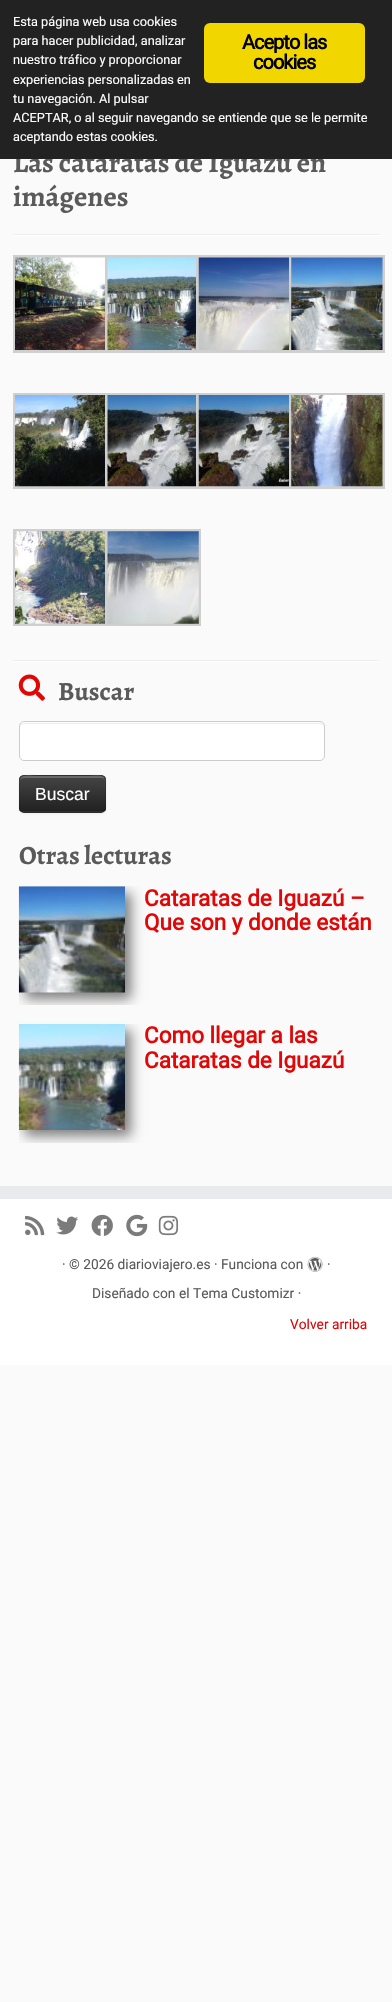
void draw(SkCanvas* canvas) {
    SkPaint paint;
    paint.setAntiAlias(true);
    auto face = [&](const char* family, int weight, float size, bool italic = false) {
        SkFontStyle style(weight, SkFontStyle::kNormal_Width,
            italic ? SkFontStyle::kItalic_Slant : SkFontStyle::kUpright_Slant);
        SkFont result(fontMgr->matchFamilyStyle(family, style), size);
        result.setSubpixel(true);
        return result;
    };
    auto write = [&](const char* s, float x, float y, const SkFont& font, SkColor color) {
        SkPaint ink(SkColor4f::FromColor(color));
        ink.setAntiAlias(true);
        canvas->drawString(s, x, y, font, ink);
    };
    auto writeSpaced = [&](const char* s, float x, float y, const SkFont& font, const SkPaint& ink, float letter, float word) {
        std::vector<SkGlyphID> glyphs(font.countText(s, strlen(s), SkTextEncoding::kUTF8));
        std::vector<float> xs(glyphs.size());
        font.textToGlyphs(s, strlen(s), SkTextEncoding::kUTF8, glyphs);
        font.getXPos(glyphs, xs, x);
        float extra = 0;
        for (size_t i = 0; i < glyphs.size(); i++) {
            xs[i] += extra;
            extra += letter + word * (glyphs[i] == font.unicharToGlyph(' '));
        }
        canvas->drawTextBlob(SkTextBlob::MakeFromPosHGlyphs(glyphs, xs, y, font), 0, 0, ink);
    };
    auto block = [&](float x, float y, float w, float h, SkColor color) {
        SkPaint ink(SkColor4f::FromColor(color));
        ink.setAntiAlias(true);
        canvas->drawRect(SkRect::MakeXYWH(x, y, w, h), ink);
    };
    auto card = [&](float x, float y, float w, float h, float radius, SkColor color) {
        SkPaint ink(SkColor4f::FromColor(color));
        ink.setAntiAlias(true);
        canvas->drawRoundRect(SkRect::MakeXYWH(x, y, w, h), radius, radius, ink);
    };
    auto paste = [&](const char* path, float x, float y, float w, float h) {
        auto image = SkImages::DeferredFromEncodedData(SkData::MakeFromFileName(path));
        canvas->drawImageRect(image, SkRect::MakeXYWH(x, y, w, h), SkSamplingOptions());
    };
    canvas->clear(SkColorSetRGB(250, 250, 250));
    auto kFont1 = face("Alegreya", 700, 28.75f);
    write("Las cataratas de Iguazú en", 13, 172, kFont1, SkColorSetRGB(90, 90, 90));
    block(0, 0, 392, 159, SkColorSetRGB(34, 34, 34));
    auto kFont2 = face("Roboto", 400, 12.75f);
    write("Esta página web usa cookies", 13, 26, kFont2, SK_ColorWHITE);
    write("para hacer publicidad, analizar", 13, 45, kFont2, SK_ColorWHITE);
    write("nuestro tráfico y proporcionar", 13, 64, kFont2, SK_ColorWHITE);
    write("experiencias personalizadas en", 13, 84, kFont2, SK_ColorWHITE);
    write("tu navegación. Al pulsar", 13, 103, kFont2, SK_ColorWHITE);
    write("ACEPTAR, o al seguir navegando se entiende que se le permite", 13, 122, kFont2, SK_ColorWHITE);
    write("aceptando estas cookies.", 13, 141, kFont2, SK_ColorWHITE);
    card(204, 23, 161, 60, 6, SkColorSetRGB(241, 214, 0));
    auto kFont3 = face("Roboto", 700, 20);
    paint.setColor(SK_ColorBLACK);
    writeSpaced("Acepto las", 242, 49, kFont3, paint, -1, 0);
    writeSpaced("cookies", 253, 69, kFont3, paint, -1, 0);
    write("imágenes", 13, 206, kFont1, SkColorSetRGB(90, 90, 90));
    block(13, 234, 367, 1, SkColorSetRGB(238, 238, 238));
    block(13, 235, 367, 1, SK_ColorWHITE);
    paint.setStyle(SkPaint::kStroke_Style);
    paint.setStrokeWidth(3);
    paint.setColor(SkColorSetRGB(207, 207, 207));
    canvas->drawRect(SkRect::MakeXYWH(14.5f, 256.5f, 94, 95), paint);
    paste("pic1.png", 15, 257, 90, 93);
    canvas->drawRect(SkRect::MakeXYWH(106.5f, 256.5f, 93, 95), paint);
    paste("pic2.png", 107, 257, 89, 93);
    canvas->drawRect(SkRect::MakeXYWH(197.5f, 256.5f, 95, 95), paint);
    paste("pic3.png", 198, 257, 91, 93);
    canvas->drawRect(SkRect::MakeXYWH(290.5f, 256.5f, 93, 95), paint);
    paste("pic4.png", 291, 257, 92, 93);
    canvas->drawRect(SkRect::MakeXYWH(14.5f, 394.5f, 94, 93), paint);
    paste("pic5.png", 15, 395, 90, 92);
    canvas->drawRect(SkRect::MakeXYWH(106.5f, 394.5f, 93, 93), paint);
    paste("pic6.png", 107, 395, 89, 92);
    canvas->drawRect(SkRect::MakeXYWH(197.5f, 394.5f, 95, 93), paint);
    paste("pic7.png", 198, 395, 91, 92);
    canvas->drawRect(SkRect::MakeXYWH(290.5f, 394.5f, 93, 93), paint);
    paste("pic8.png", 291, 395, 92, 92);
    canvas->drawRect(SkRect::MakeXYWH(14.5f, 530.5f, 94, 94), paint);
    paste("pic9.png", 15, 531, 90, 93);
    canvas->drawRect(SkRect::MakeXYWH(106.5f, 530.5f, 93, 94), paint);
    paste("pic10.png", 107, 531, 92, 93);
    block(13, 660, 367, 1, SkColorSetRGB(238, 238, 238));
    block(13, 661, 367, 1, SK_ColorWHITE);
    paste("pic11.png", 18, 674, 27, 27);
    auto kFont4 = face("Alegreya", 700, 26.25f);
    write("Buscar", 58, 700, kFont4, SkColorSetRGB(90, 90, 90));
    card(19, 721, 306, 40, 5, SK_ColorWHITE);
    paint.setStyle(SkPaint::kFill_Style);
    paint.setColor(SkColorSetRGB(236, 236, 236));
    canvas->drawPath(SkPathBuilder().moveTo(24, 724).lineTo(320, 724).cubicTo(322, 724, 324, 725, 324, 728).cubicTo(324, 725, 323, 723, 320, 723).lineTo(24, 723).lineTo(21, 724).cubicTo(20, 725, 20, 727, 20, 728).cubicTo(20, 725, 22, 724, 24, 724).close().detach(), paint);
    paint.setStyle(SkPaint::kStroke_Style);
    paint.setStrokeWidth(1);
    paint.setColor(SkColorSetRGB(204, 204, 204));
    canvas->drawRoundRect(SkRect::MakeXYWH(19.5f, 721.5f, 305, 39), 4.5f, 4.5f, paint);
    paint.setStyle(SkPaint::kFill_Style);
    paint.setColor(SkColorSetARGB(13, 0, 0, 0));
    paint.setMaskFilter(SkMaskFilter::MakeBlur(kNormal_SkBlurStyle, 1));
    canvas->drawRoundRect(SkRect::MakeXYWH(19, 776, 87, 38), 5, 5, paint);
    paint.setMaskFilter(nullptr);
    card(19, 775, 87, 38, 5, SkColorSetRGB(54, 54, 54));
    canvas->save();
    canvas->clipPath(SkPathBuilder().moveTo(24, 775).lineTo(101, 775).cubicTo(104, 775, 106, 777, 106, 780).lineTo(106, 808).cubicTo(106, 811, 104, 813, 101, 813).lineTo(24, 813).cubicTo(21, 813, 19, 811, 19, 808).lineTo(19, 780).cubicTo(19, 777, 21, 775, 24, 775).close().detach(), true);
    {
        const SkColor colors[] = {SkColorSetRGB(68, 68, 68), SkColorSetRGB(34, 34, 34)};
        const float stops[] = {0, 1};
        const SkPoint ends[] = {{63, 776}, {63, 811}};
        paint.setShader(SkGradientShader::MakeLinear(ends, colors, stops, 2, SkTileMode::kClamp));
        paint.setAlpha(255);
    }
    canvas->drawRect(SkRect::MakeXYWH(19, 776, 87, 35), paint);
    canvas->restore();
    paint.setShader(nullptr);
    paint.setColor(SkColorSetARGB(51, 255, 255, 255));
    canvas->drawPath(SkPathBuilder().moveTo(24, 778).lineTo(101, 778).cubicTo(103, 778, 105, 779, 105, 781).cubicTo(105, 773, 93, 776, 88, 776).lineTo(37, 776).cubicTo(32, 776, 20, 773, 20, 781).cubicTo(20, 779, 22, 778, 24, 778).close().detach(), paint);
    paint.setStyle(SkPaint::kStroke_Style);
    paint.setStrokeWidth(1.2f);
    paint.setColor(SkColorSetARGB(64, 0, 0, 0));
    canvas->drawPath(SkPathBuilder().moveTo(104.5f, 810.5f).lineTo(101.5f, 812).lineTo(23.5f, 812).lineTo(20.5f, 810.5f).detach(), paint);
    paint.setColor(SkColorSetARGB(26, 0, 0, 0));
    canvas->drawPath(SkPathBuilder().moveTo(20.5f, 810.5f).cubicTo(18.5f, 808.5f, 19.5f, 805.5f, 19.5f, 803).lineTo(19.5f, 794).cubicTo(19.5f, 773.5f, 16.5f, 775.5f, 36.5f, 775.5f).lineTo(88.5f, 775.5f).cubicTo(108.5f, 775.5f, 105.5f, 773.5f, 105.5f, 794).lineTo(105.5f, 803).cubicTo(105.5f, 805.5f, 106.5f, 808.5f, 104.5f, 810.5f).detach(), paint);
    auto kFont5 = face("Liberation Sans", 400, 17.5f);
    write("Buscar", 35, 800, kFont5, SK_ColorWHITE);
    write("Otras lecturas", 19, 864, kFont4, SkColorSetRGB(90, 90, 90));
    canvas->save();
    canvas->clipRect(SkRect::MakeXYWH(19, 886, 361, 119));
    paint.setStyle(SkPaint::kFill_Style);
    paint.setColor(SkColorSetARGB(128, 0, 0, 0));
    paint.setMaskFilter(SkMaskFilter::MakeBlur(kNormal_SkBlurStyle, 6));
    canvas->drawRect(SkRect::MakeXYWH(25, 893, 106, 106), paint);
    paint.setMaskFilter(nullptr);
    canvas->restore();
    paste("pic12.png", 18, 886, 107, 107);
    auto kFont6 = face("Roboto", 700, 22.5f);
    write("Cataratas de Iguazú –", 144, 906, kFont6, SkColorSetRGB(225, 7, 7));
    write("Que son y donde están", 144, 930, kFont6, SkColorSetRGB(225, 7, 7));
    canvas->save();
    canvas->clipRect(SkRect::MakeXYWH(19, 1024, 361, 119));
    paint.setMaskFilter(SkMaskFilter::MakeBlur(kNormal_SkBlurStyle, 6));
    canvas->drawRect(SkRect::MakeXYWH(25, 1030, 106, 106), paint);
    paint.setMaskFilter(nullptr);
    canvas->restore();
    paste("pic13.png", 18, 1023, 107, 107);
    write("Como llegar a las", 144, 1043, kFont6, SkColorSetRGB(225, 7, 7));
    write("Cataratas de Iguazú", 144, 1068, kFont6, SkColorSetRGB(225, 7, 7));
    block(0, 1186, 392, 13, SkColorSetRGB(233, 234, 238));
    block(0, 1199, 392, 166, SK_ColorWHITE);
    paste("pic14.png", 25, 1215, 20, 21);
    paste("pic15.png", 56, 1216, 22, 19);
    paste("pic16.png", 91, 1214, 22, 22);
    paste("pic17.png", 126, 1214, 22, 23);
    paste("pic18.png", 158, 1215, 21, 21);
    auto kFont7 = face("Roboto", 400, 13.75f);
    write("· © 2026 diarioviajero.es · Funciona con", 62, 1269, kFont7, SkColorSetRGB(90, 90, 90));
    paste("pic19.png", 307, 1257, 16, 15);
    write("·", 327, 1269, kFont7, SkColorSetRGB(90, 90, 90));
    write("Diseñado con el Tema Customizr ·", 92, 1298, kFont7, SkColorSetRGB(90, 90, 90));
    write("Volver arriba", 290, 1329, kFont7, SkColorSetRGB(225, 7, 7));
}
